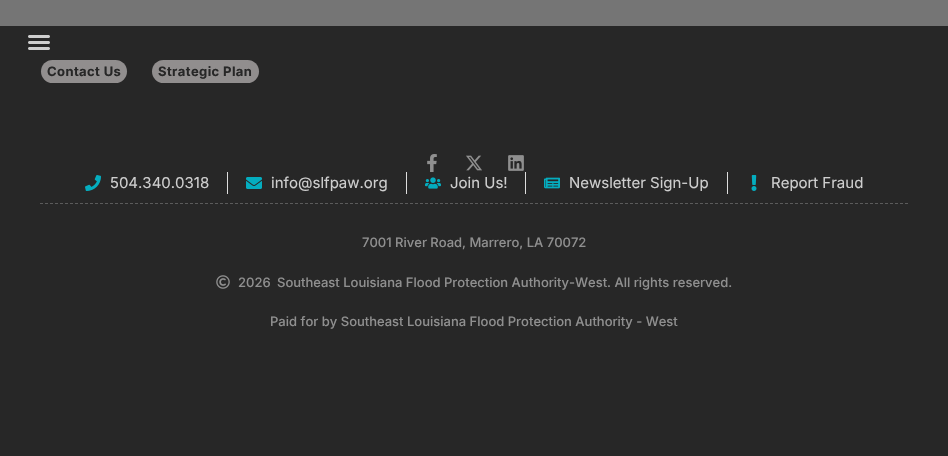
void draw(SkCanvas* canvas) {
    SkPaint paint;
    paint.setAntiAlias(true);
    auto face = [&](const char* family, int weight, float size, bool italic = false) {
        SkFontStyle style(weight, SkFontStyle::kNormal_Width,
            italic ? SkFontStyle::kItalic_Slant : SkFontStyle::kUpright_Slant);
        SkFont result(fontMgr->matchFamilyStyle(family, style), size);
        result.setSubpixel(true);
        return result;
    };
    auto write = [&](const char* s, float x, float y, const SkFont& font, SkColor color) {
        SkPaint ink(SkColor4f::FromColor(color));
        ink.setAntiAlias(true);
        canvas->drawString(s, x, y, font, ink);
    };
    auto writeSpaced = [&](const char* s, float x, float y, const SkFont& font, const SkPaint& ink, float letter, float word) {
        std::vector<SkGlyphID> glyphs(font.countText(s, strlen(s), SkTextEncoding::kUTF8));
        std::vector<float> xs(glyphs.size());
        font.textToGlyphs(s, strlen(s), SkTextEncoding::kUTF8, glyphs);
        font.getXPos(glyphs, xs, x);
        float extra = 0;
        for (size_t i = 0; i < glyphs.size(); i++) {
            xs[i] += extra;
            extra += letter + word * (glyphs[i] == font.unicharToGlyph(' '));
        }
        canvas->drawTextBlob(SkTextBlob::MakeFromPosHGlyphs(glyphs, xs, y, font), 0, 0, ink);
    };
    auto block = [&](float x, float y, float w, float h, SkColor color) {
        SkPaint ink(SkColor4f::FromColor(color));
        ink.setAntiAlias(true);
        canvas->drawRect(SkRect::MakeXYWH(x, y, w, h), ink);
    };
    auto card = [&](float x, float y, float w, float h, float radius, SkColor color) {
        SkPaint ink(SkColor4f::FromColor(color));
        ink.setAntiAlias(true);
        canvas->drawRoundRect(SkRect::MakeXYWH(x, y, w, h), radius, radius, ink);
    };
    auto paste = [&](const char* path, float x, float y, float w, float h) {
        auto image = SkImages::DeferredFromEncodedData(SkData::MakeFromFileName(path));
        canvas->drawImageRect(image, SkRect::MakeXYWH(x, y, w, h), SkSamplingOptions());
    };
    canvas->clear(SkColorSetRGB(39, 39, 39));
    block(0, 0, 948, 26, SkColorSetRGB(117, 117, 117));
    paste("pic1.png", 28, 35, 22, 15);
    card(41, 60, 86, 23, 11.5f, SkColorSetRGB(145, 142, 142));
    auto kFont1 = face("Inter", 700, 13);
    paint.setColor(SkColorSetRGB(39, 39, 39));
    writeSpaced("Contact Us", 47, 76, kFont1, paint, 0.4f, 0);
    card(152, 60, 107, 23, 11.5f, SkColorSetRGB(145, 142, 142));
    writeSpaced("Strategic Plan", 158, 76, kFont1, paint, 0.4f, 0);
    paste("pic2.png", 427, 154, 10, 18);
    paste("pic3.png", 466, 155, 16, 16);
    paste("pic4.png", 508, 155, 16, 16);
    paste("pic5.png", 85, 175, 16, 16);
    auto kFont2 = face("Inter", 400, 15);
    write("504.340.0318", 110, 188, kFont2, SkColorSetRGB(206, 206, 206));
    block(227, 172, 1, 22, SkColorSetRGB(221, 221, 221));
    paste("pic6.png", 246, 177, 16, 12);
    write("info@slfpaw.org", 271, 188, kFont2, SkColorSetRGB(206, 206, 206));
    block(406, 172, 1, 22, SkColorSetRGB(221, 221, 221));
    paste("pic7.png", 425, 177, 16, 12);
    write("Join Us!", 450, 188, kFont2, SkColorSetRGB(206, 206, 206));
    block(525, 172, 1, 22, SkColorSetRGB(221, 221, 221));
    paste("pic8.png", 544, 177, 16, 12);
    write("Newsletter Sign-Up", 569, 188, kFont2, SkColorSetRGB(206, 206, 206));
    block(727, 172, 1, 22, SkColorSetRGB(221, 221, 221));
    paste("pic9.png", 751, 175, 6, 16);
    write("Report Fraud", 771, 188, kFont2, SkColorSetRGB(206, 206, 206));
    paint.setStyle(SkPaint::kStroke_Style);
    paint.setStrokeWidth(1);
    paint.setColor(SkColorSetRGB(91, 91, 91));
    paint.setPathEffect(SkDashPathEffect::Make({{3, 2}}, 0));
    canvas->drawPath(SkPathBuilder().moveTo(40, 203.5f).lineTo(908, 203.5f).detach(), paint);
    paint.setPathEffect(nullptr);
    auto kFont3 = face("Inter", 500, 13);
    write("7001 River Road, Marrero, LA 70072", 362, 247, kFont3, SkColorSetRGB(143, 143, 143));
    paste("pic10.png", 216, 275, 14, 14);
    write("2026", 238, 287, kFont3, SkColorSetRGB(143, 143, 143));
    write("Southeast Louisiana Flood Protection Authority-West. All rights reserved.", 277, 287, kFont3, SkColorSetRGB(143, 143, 143));
    write("Paid for by Southeast Louisiana Flood Protection Authority - West", 270, 326, kFont3, SkColorSetRGB(143, 143, 143));
}
